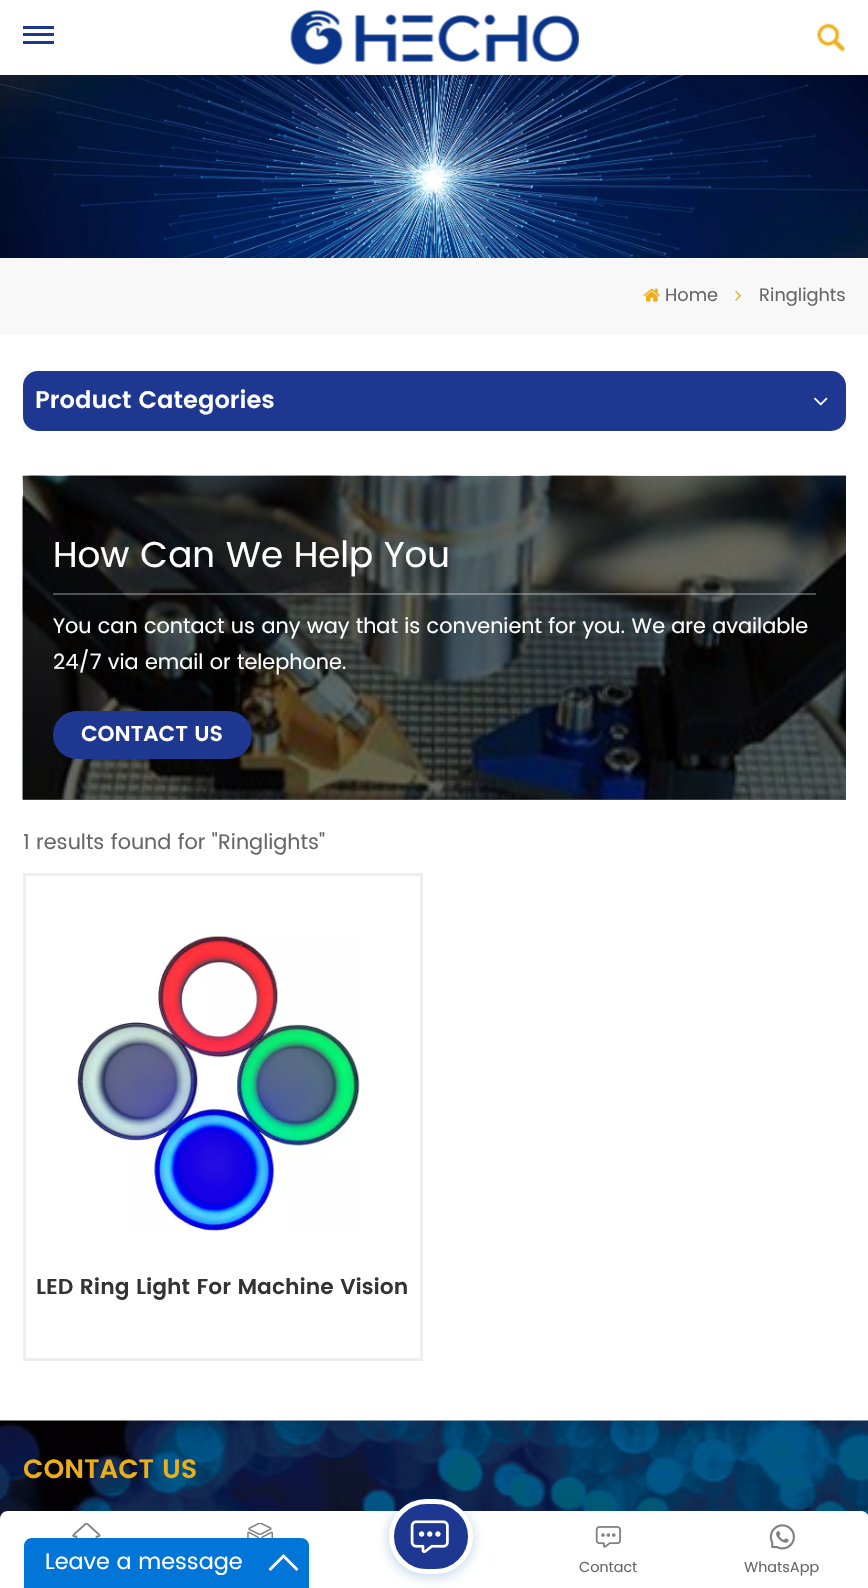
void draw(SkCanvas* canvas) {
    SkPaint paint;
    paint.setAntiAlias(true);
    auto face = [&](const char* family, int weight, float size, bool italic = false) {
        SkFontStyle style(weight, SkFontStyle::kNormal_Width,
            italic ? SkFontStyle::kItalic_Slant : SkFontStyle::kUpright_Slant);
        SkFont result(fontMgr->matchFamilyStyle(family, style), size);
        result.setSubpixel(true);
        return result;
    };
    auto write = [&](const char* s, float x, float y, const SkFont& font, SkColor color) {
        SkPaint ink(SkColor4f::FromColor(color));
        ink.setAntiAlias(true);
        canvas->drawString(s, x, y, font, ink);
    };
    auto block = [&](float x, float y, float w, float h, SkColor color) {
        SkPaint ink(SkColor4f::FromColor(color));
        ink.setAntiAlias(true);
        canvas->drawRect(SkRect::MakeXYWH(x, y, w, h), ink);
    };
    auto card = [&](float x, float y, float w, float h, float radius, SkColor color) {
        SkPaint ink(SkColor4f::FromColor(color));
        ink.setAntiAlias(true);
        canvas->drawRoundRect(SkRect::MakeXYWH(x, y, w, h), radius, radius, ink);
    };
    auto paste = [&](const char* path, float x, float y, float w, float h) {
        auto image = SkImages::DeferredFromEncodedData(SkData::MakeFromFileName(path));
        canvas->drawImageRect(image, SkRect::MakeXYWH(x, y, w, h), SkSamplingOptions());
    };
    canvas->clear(SK_ColorWHITE);
    block(23, 799, 823, 1, SkColorSetRGB(102, 102, 102));
    block(23, 26, 31, 3, SkColorSetRGB(30, 55, 145));
    block(23, 33, 31, 3, SkColorSetRGB(30, 55, 145));
    block(23, 41, 31, 3, SkColorSetRGB(30, 55, 145));
    paste("pic1.png", 290, 10, 289, 55);
    paste("pic2.png", 817, 23, 28, 29);
    paste("pic3.png", 0, 75, 868, 183);
    block(0, 258, 868, 77, SkColorSetRGB(248, 248, 248));
    paste("pic4.png", 643, 288, 17, 14);
    auto kFont1 = face("Poppins", 400, 18);
    write("Home", 665, 301, kFont1, SkColorSetRGB(102, 102, 102));
    paste("pic5.png", 735, 290, 6, 11);
    write("Ringlights", 759, 301, kFont1, SkColorSetRGB(102, 102, 102));
    block(23, 371, 823, 60, SkColorSetRGB(247, 247, 247));
    card(23, 371, 823, 60, 15, SkColorSetRGB(30, 55, 145));
    auto kFont2 = face("Poppins", 600, 24);
    write("Product Categories", 35, 408, kFont2, SK_ColorWHITE);
    paste("pic6.png", 814, 397, 14, 9);
    paste("pic7.png", 22, 475, 824, 325);
    block(53, 593, 763, 2, SkColorSetARGB(77, 255, 255, 255));
    auto kFont3 = face("Poppins", 400, 36);
    write("How Can We Help You", 53, 567, kFont3, SK_ColorWHITE);
    auto kFont4 = face("Poppins", 400, 21);
    write("You can contact us any way that is convenient for you. We are available", 53, 633, kFont4, SK_ColorWHITE);
    write("24/7 via email or telephone.", 53, 669, kFont4, SK_ColorWHITE);
    card(53, 711, 199, 48, 24, SkColorSetRGB(30, 55, 145));
    auto kFont5 = face("Poppins", 600, 21.6f);
    write("CONTACT US", 81, 741, kFont5, SK_ColorWHITE);
    write("1 results found for \"Ringlights\"", 23, 849, kFont4, SkColorSetRGB(102, 102, 102));
    paint.setStyle(SkPaint::kStroke_Style);
    paint.setStrokeWidth(3);
    paint.setColor(SkColorSetRGB(238, 238, 238));
    canvas->drawRect(SkRect::MakeXYWH(24.5f, 874.5f, 397, 485), paint);
    paste("pic8.png", 77, 936, 283, 297);
    write("LED Ring Light For Machine Vision", 36, 1294, kFont5, SkColorSetRGB(51, 51, 51));
    paste("pic9.png", 0, 1420, 868, 99);
    auto kFont6 = face("Poppins", 600, 26.5f);
    write("CONTACT US", 23, 1478, kFont6, SkColorSetRGB(236, 174, 25));
    paint.setStyle(SkPaint::kFill_Style);
    paint.setColor(SkColorSetARGB(20, 0, 0, 0));
    paint.setMaskFilter(SkMaskFilter::MakeBlur(kNormal_SkBlurStyle, 15));
    canvas->drawRoundRect(SkRect::MakeXYWH(3, 1511, 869, 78), 8, 8, paint);
    paint.setMaskFilter(nullptr);
    paint.setColor(SK_ColorWHITE);
    canvas->drawPath(SkPathBuilder().moveTo(8, 1511).lineTo(861, 1511).cubicTo(865.5f, 1511, 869, 1514.5f, 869, 1519).lineTo(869, 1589).lineTo(0, 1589).lineTo(0, 1519).cubicTo(0, 1514.5f, 3.5f, 1511, 8, 1511).close().detach(), paint);
    paint.setColor(SkColorSetRGB(2, 117, 216));
    canvas->drawPath(SkPathBuilder().moveTo(32, 1538).lineTo(301, 1538).cubicTo(305.5f, 1538, 309, 1541.5f, 309, 1546).lineTo(309, 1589).lineTo(24, 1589).lineTo(24, 1546).cubicTo(24, 1541.5f, 27.5f, 1538, 32, 1538).close().detach(), paint);
    auto kFont7 = face("Poppins", 400, 22.5f);
    write("Leave a message", 45, 1569, kFont7, SK_ColorWHITE);
    paint.setColor(SK_ColorWHITE);
    canvas->drawPath(SkPathBuilder().moveTo(283.5f, 1554).lineTo(298.5f, 1569).lineTo(296.5f, 1571).lineTo(283.5f, 1558).lineTo(270.5f, 1571).lineTo(268.5f, 1569).close().detach(), paint);
    paint.setColor(SkColorSetARGB(51, 0, 78, 152));
    paint.setMaskFilter(SkMaskFilter::MakeBlur(kNormal_SkBlurStyle, 6));
    canvas->drawRoundRect(SkRect::MakeXYWH(387, 1500, 87, 78), 39, 39, paint);
    paint.setMaskFilter(nullptr);
    paint.setColor(SkColorSetRGB(30, 55, 145));
    canvas->drawRoundRect(SkRect::MakeXYWH(391.5f, 1501.5f, 79, 70), 35, 35, paint);
    paint.setStyle(SkPaint::kStroke_Style);
    paint.setStrokeWidth(5);
    paint.setColor(SK_ColorWHITE);
    canvas->drawRoundRect(SkRect::MakeXYWH(391.5f, 1501.5f, 79, 70), 35, 35, paint);
    paste("pic10.png", 410, 1520, 39, 34);
    paste("pic11.png", 72, 1523, 29, 15);
    paste("pic12.png", 247, 1523, 26, 15);
    paste("pic13.png", 595, 1526, 26, 22);
    auto kFont8 = face("Poppins", 400, 14.5f);
    write("Contact", 579, 1572, kFont8, SkColorSetRGB(102, 102, 102));
    paste("pic14.png", 769, 1524, 26, 26);
    write("WhatsApp", 744, 1572, kFont8, SkColorSetRGB(102, 102, 102));
}
